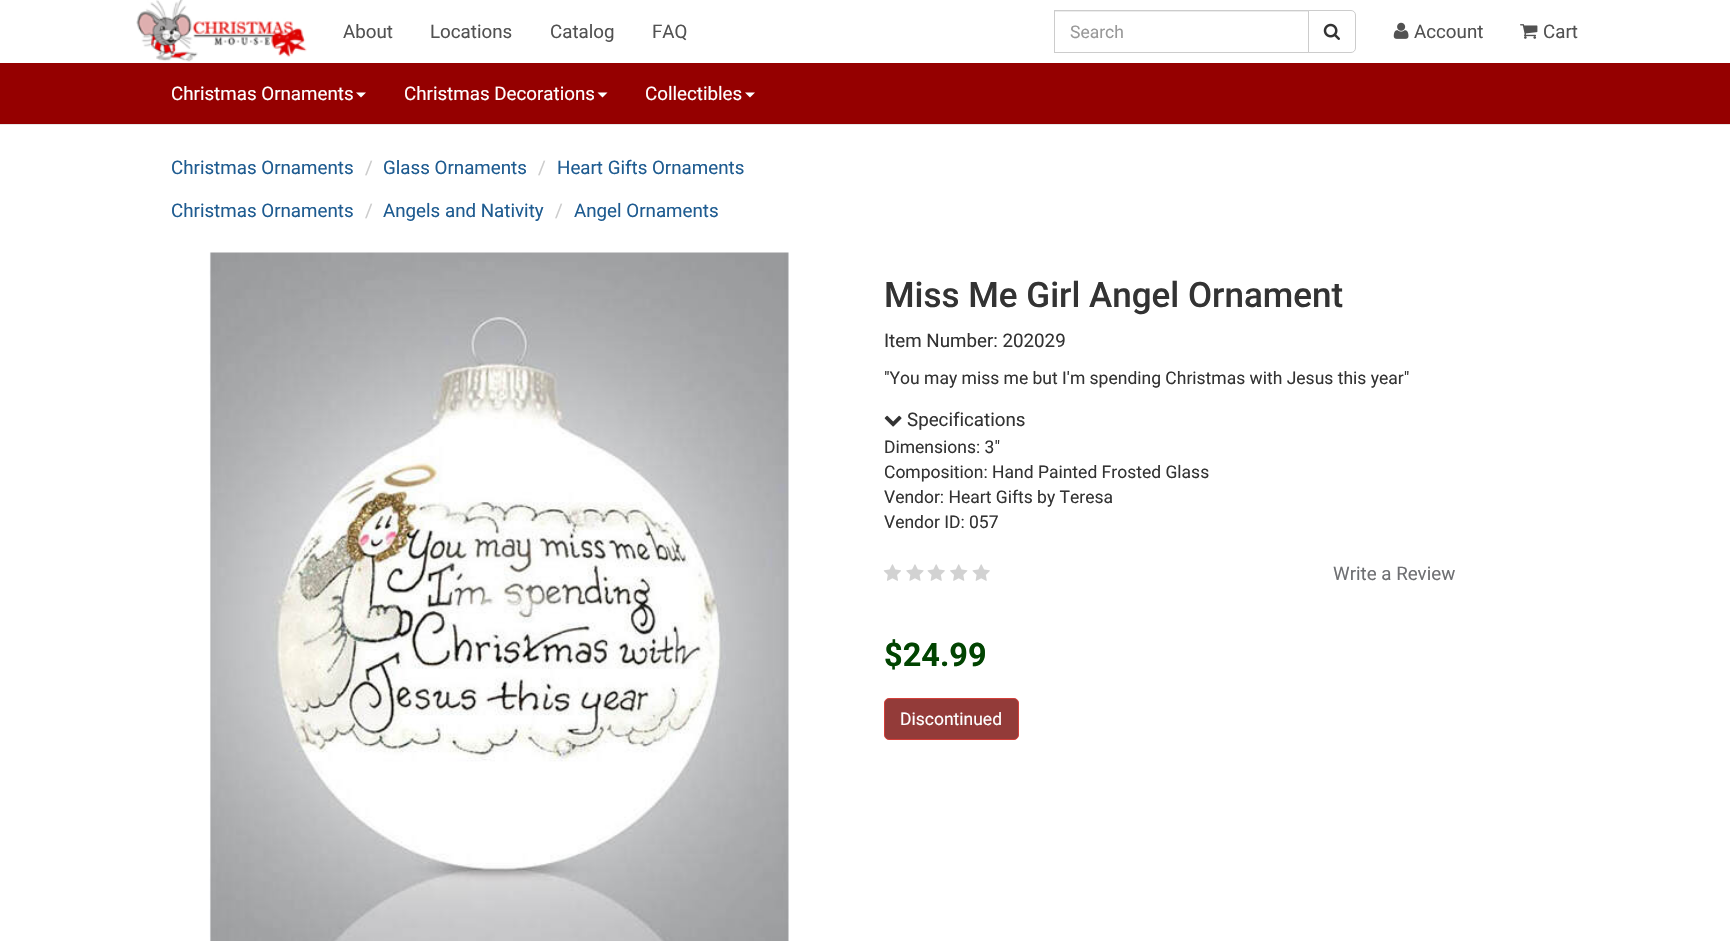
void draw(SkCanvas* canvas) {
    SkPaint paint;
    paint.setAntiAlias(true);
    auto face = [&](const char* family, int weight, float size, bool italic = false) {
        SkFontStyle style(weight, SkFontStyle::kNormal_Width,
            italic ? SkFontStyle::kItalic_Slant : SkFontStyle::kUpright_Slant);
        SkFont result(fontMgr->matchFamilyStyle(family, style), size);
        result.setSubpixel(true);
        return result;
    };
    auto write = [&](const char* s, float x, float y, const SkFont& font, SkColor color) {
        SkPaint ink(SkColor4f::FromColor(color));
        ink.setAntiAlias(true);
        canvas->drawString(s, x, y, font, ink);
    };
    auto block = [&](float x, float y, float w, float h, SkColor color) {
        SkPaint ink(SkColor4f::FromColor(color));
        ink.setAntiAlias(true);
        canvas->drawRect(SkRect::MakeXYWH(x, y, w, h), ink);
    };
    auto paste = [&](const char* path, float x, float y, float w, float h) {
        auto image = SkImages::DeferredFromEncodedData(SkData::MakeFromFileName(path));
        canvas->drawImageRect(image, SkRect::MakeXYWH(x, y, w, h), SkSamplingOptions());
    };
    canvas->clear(SK_ColorWHITE);
    paste("pic1.png", 136, 0, 171, 62);
    auto kFont1 = face("Roboto", 400, 18.75f);
    write("About", 343, 38, kFont1, SkColorSetRGB(82, 82, 82));
    write("Locations", 430, 38, kFont1, SkColorSetRGB(82, 82, 82));
    write("Catalog", 550, 38, kFont1, SkColorSetRGB(82, 82, 82));
    write("FAQ", 652, 38, kFont1, SkColorSetRGB(82, 82, 82));
    block(1055, 11, 253, 1, SkColorSetRGB(236, 236, 236));
    paint.setStyle(SkPaint::kStroke_Style);
    paint.setStrokeWidth(1);
    paint.setColor(SkColorSetRGB(204, 204, 204));
    canvas->drawRect(SkRect::MakeXYWH(1054.5f, 10.5f, 254, 42), paint);
    auto kFont2 = face("Roboto", 400, 17.5f);
    write("Search", 1070, 38, kFont2, SkColorSetRGB(153, 153, 153));
    paint.setStyle(SkPaint::kFill_Style);
    paint.setColor(SK_ColorWHITE);
    canvas->drawPath(SkPathBuilder().moveTo(1308.5f, 10.5f).lineTo(1351, 10.5f).cubicTo(1353.5f, 10.5f, 1355.5f, 12.5f, 1355.5f, 15).lineTo(1355.5f, 48).cubicTo(1355.5f, 50.5f, 1353.5f, 52.5f, 1351, 52.5f).lineTo(1308.5f, 52.5f).close().detach(), paint);
    paint.setStyle(SkPaint::kStroke_Style);
    paint.setColor(SkColorSetRGB(204, 204, 204));
    canvas->drawPath(SkPathBuilder().moveTo(1308.5f, 10.5f).lineTo(1351, 10.5f).cubicTo(1353.5f, 10.5f, 1355.5f, 12.5f, 1355.5f, 15).lineTo(1355.5f, 48).cubicTo(1355.5f, 50.5f, 1353.5f, 52.5f, 1351, 52.5f).lineTo(1308.5f, 52.5f).close().detach(), paint);
    paste("pic2.png", 1323, 23, 17, 17);
    paste("pic3.png", 1393, 22, 16, 17);
    write("Account", 1414, 38, kFont1, SkColorSetRGB(82, 82, 82));
    paste("pic4.png", 1520, 24, 18, 15);
    write("Cart", 1543, 38, kFont1, SkColorSetRGB(82, 82, 82));
    block(0, 63, 1730, 61, SkColorSetRGB(149, 0, 0));
    block(0, 124, 1730, 1, SkColorSetRGB(231, 231, 231));
    write("Christmas Ornaments", 171, 100, kFont1, SK_ColorWHITE);
    paint.setStyle(SkPaint::kFill_Style);
    paint.setColor(SK_ColorWHITE);
    canvas->drawPath(SkPathBuilder().moveTo(356, 92.5f).lineTo(366, 92.5f).lineTo(361, 97.5f).close().detach(), paint);
    write("Christmas Decorations", 404, 100, kFont1, SK_ColorWHITE);
    canvas->drawPath(SkPathBuilder().moveTo(597.5f, 92.5f).lineTo(607.5f, 92.5f).lineTo(602.5f, 97.5f).close().detach(), paint);
    write("Collectibles", 645, 100, kFont1, SK_ColorWHITE);
    canvas->drawPath(SkPathBuilder().moveTo(745, 92.5f).lineTo(755, 92.5f).lineTo(750, 97.5f).close().detach(), paint);
    write("Christmas Ornaments", 171, 174, kFont1, SkColorSetRGB(31, 92, 145));
    write("/", 365, 174, kFont1, SkColorSetRGB(204, 204, 204));
    write("Glass Ornaments", 383, 174, kFont1, SkColorSetRGB(31, 92, 145));
    write("/", 538, 174, kFont1, SkColorSetRGB(204, 204, 204));
    write("Heart Gifts Ornaments", 557, 174, kFont1, SkColorSetRGB(31, 92, 145));
    write("Christmas Ornaments", 171, 217, kFont1, SkColorSetRGB(31, 92, 145));
    write("/", 365, 217, kFont1, SkColorSetRGB(204, 204, 204));
    write("Angels and Nativity", 383, 217, kFont1, SkColorSetRGB(31, 92, 145));
    write("/", 555, 217, kFont1, SkColorSetRGB(204, 204, 204));
    write("Angel Ornaments", 574, 217, kFont1, SkColorSetRGB(31, 92, 145));
    paste("pic5.png", 209, 252, 580, 689);
    auto kFont3 = face("Roboto", 500, 35);
    write("Miss Me Girl Angel Ornament", 884, 307, kFont3, SkColorSetRGB(51, 51, 51));
    write("Item Number: 202029", 884, 347, kFont1, SkColorSetRGB(51, 51, 51));
    write("\"You may miss me but I'm spending Christmas with Jesus this year\"", 884, 384, kFont2, SkColorSetRGB(51, 51, 51));
    paste("pic6.png", 884, 415, 18, 12);
    write("Specifications", 907, 426, kFont1, SkColorSetRGB(51, 51, 51));
    write("Dimensions: 3\"", 884, 453, kFont2, SkColorSetRGB(51, 51, 51));
    write("Composition: Hand Painted Frosted Glass", 884, 478, kFont2, SkColorSetRGB(51, 51, 51));
    write("Vendor: Heart Gifts by Teresa", 884, 503, kFont2, SkColorSetRGB(51, 51, 51));
    write("Vendor ID: 057", 884, 528, kFont2, SkColorSetRGB(51, 51, 51));
    paste("pic7.png", 883, 564, 18, 17);
    paste("pic8.png", 906, 564, 18, 17);
    paste("pic9.png", 927, 564, 18, 17);
    paste("pic10.png", 950, 564, 18, 17);
    paste("pic9.png", 972, 564, 18, 17);
    write("Write a Review", 1333, 580, kFont1, SkColorSetRGB(111, 112, 115));
    auto kFont4 = face("Roboto", 700, 32.5f);
    write("$24.99", 884, 666, kFont4, SkColorSetRGB(1, 68, 1));
    paint.setColor(SkColorSetRGB(147, 59, 57));
    canvas->drawRoundRect(SkRect::MakeXYWH(884.5f, 698.5f, 134, 41), 4.5f, 4.5f, paint);
    paint.setStyle(SkPaint::kStroke_Style);
    paint.setColor(SkColorSetRGB(212, 63, 58));
    canvas->drawRoundRect(SkRect::MakeXYWH(884.5f, 698.5f, 134, 41), 4.5f, 4.5f, paint);
    write("Discontinued", 900, 725, kFont2, SK_ColorWHITE);
}
